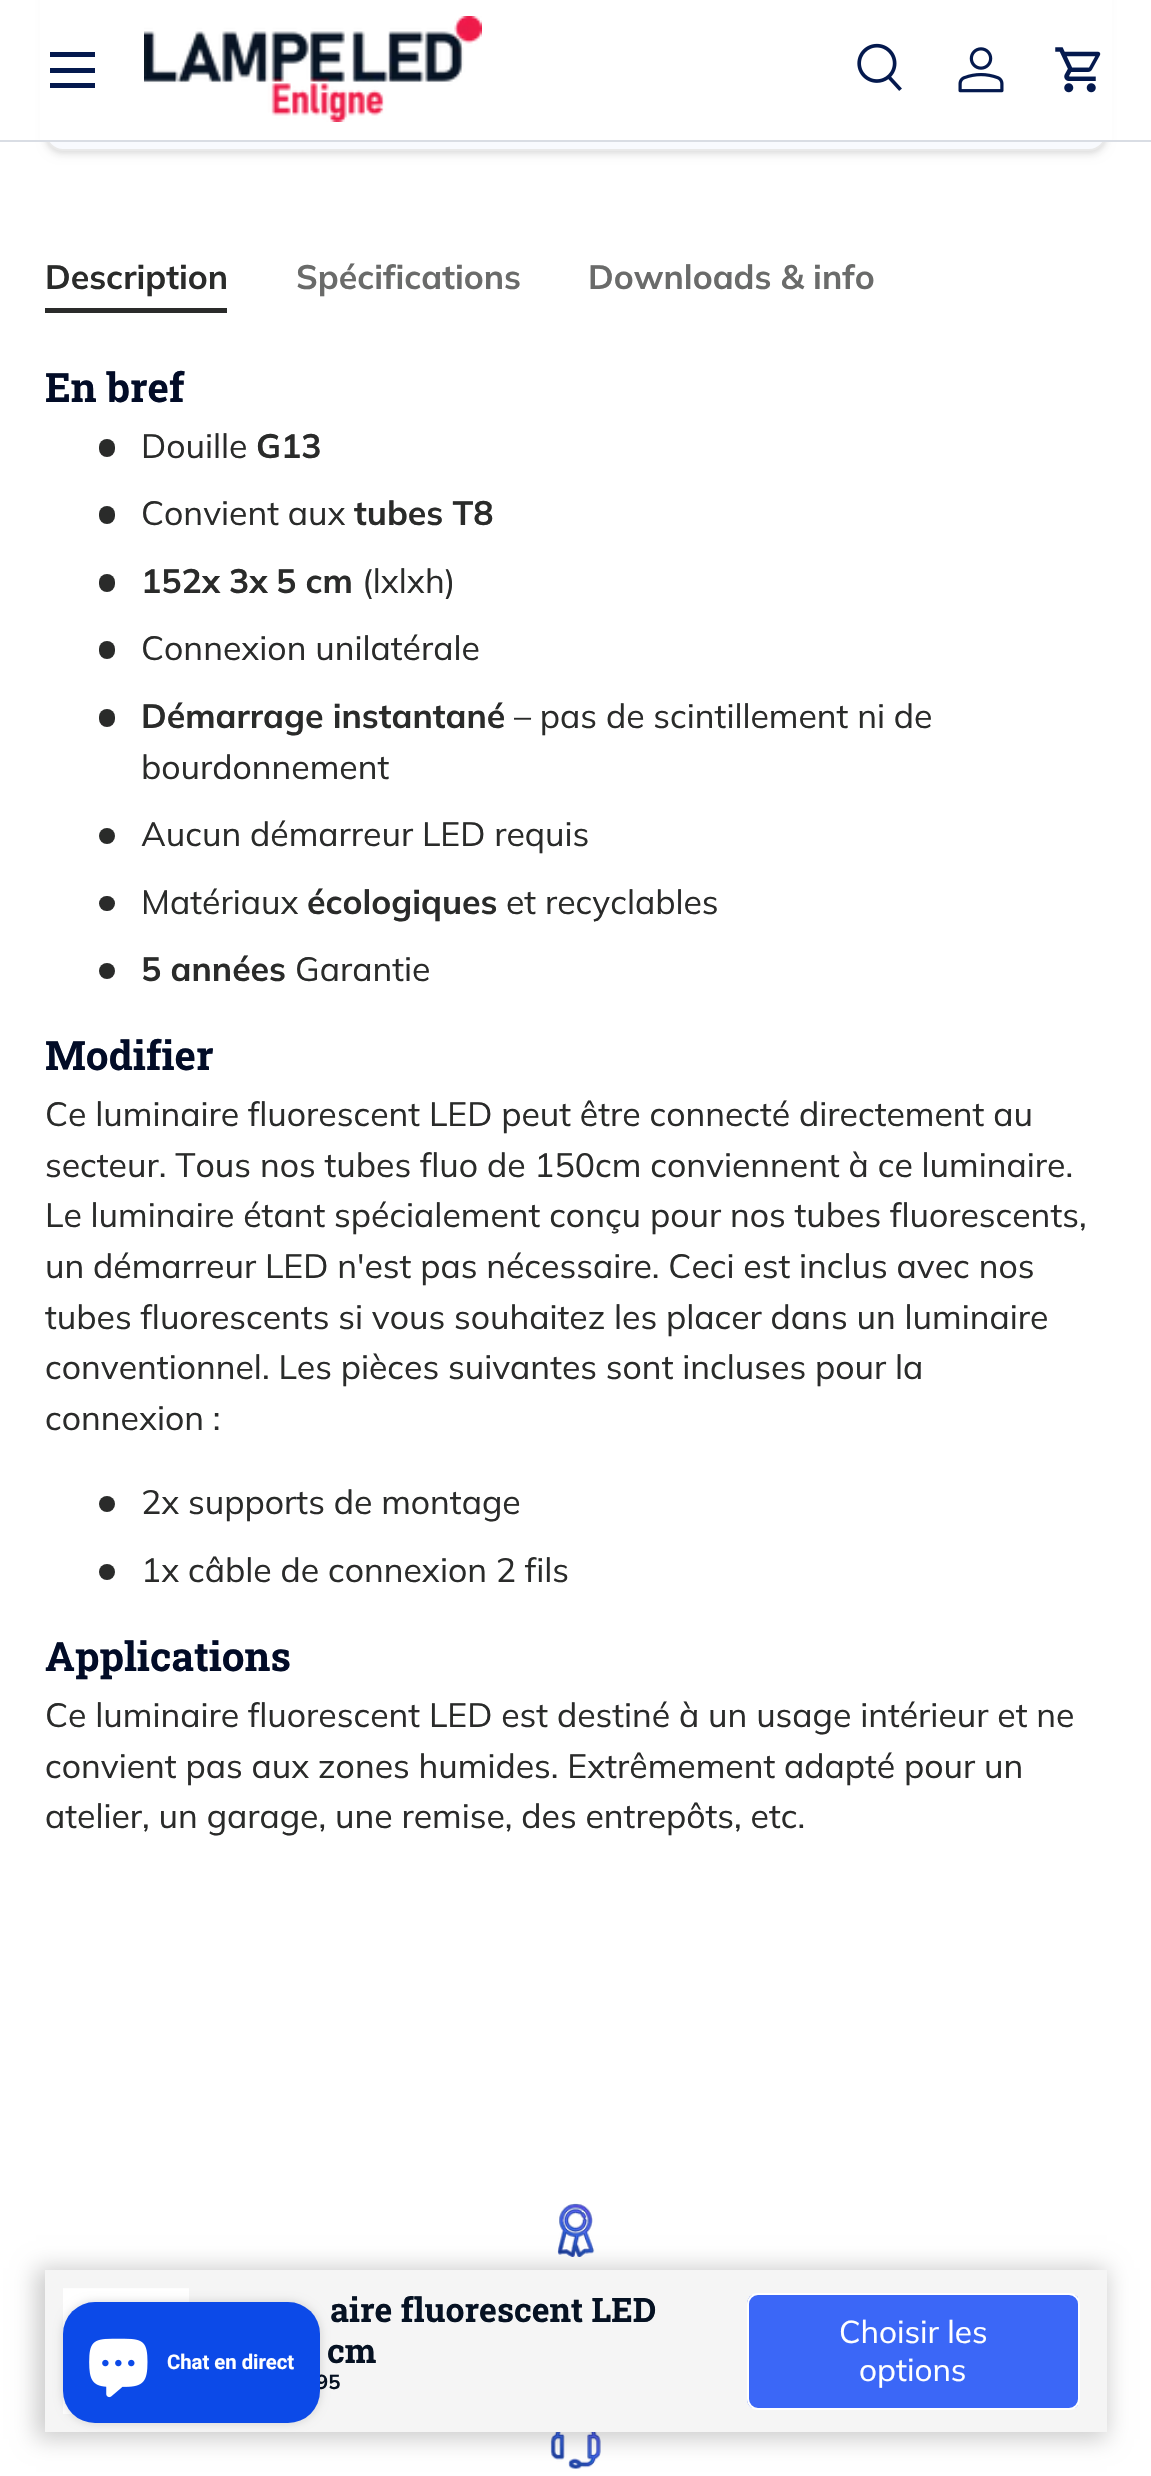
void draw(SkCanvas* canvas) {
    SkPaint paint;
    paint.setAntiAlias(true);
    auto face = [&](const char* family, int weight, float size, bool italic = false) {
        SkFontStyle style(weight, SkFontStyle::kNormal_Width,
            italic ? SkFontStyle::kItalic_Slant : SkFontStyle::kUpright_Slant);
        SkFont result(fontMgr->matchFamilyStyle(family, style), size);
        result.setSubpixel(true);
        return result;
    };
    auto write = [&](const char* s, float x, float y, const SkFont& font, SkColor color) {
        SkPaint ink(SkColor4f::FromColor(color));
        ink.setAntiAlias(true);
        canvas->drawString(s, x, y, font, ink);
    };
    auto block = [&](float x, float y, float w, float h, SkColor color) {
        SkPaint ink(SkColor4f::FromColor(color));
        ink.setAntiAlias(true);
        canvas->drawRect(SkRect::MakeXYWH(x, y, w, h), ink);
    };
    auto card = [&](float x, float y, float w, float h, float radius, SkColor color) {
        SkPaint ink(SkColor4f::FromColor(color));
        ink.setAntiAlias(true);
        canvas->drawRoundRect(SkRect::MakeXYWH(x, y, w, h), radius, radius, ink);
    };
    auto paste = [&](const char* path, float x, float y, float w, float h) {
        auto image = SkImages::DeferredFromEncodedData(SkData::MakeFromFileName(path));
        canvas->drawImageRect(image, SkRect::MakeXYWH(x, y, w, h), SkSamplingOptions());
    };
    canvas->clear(SK_ColorWHITE);
    paint.setColor(SkColorSetARGB(15, 0, 0, 0));
    paint.setMaskFilter(SkMaskFilter::MakeBlur(kNormal_SkBlurStyle, 2));
    canvas->drawRoundRect(SkRect::MakeXYWH(45, -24, 1062, 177), 18, 18, paint);
    paint.setMaskFilter(nullptr);
    paint.setColor(SkColorSetARGB(20, 0, 0, 0));
    paint.setMaskFilter(SkMaskFilter::MakeBlur(kNormal_SkBlurStyle, 4.5f));
    canvas->drawRoundRect(SkRect::MakeXYWH(45, -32, 1062, 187), 18, 18, paint);
    paint.setMaskFilter(nullptr);
    paint.setColor(SkColorSetRGB(248, 250, 254));
    canvas->drawRoundRect(SkRect::MakeXYWH(46, -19, 1060, 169), 17, 17, paint);
    paint.setStyle(SkPaint::kStroke_Style);
    paint.setStrokeWidth(2);
    paint.setColor(SkColorSetRGB(233, 233, 233));
    canvas->drawRoundRect(SkRect::MakeXYWH(46, -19, 1060, 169), 17, 17, paint);
    block(40, 0, 1072, 140, SK_ColorWHITE);
    block(0, 140, 1151, 2, SkColorSetRGB(217, 221, 228));
    block(50, 52, 45, 5, SkColorSetRGB(4, 25, 78));
    block(50, 83, 45, 5, SkColorSetRGB(4, 25, 78));
    block(50, 68, 45, 5, SkColorSetRGB(4, 25, 78));
    paste("pic1.png", 144, 16, 338, 106);
    paste("pic2.png", 857, 43, 45, 48);
    paste("pic3.png", 958, 47, 46, 46);
    paste("pic4.png", 1055, 47, 46, 46);
    auto kFont1 = face("Muli", 700, 33.75f);
    write("Description", 45, 289, kFont1, SkColorSetRGB(42, 43, 42));
    block(45, 308, 182, 5, SkColorSetRGB(42, 43, 42));
    write("Spécifications", 296, 289, kFont1, SkColorSetRGB(106, 107, 106));
    write("Downloads & info", 588, 289, kFont1, SkColorSetRGB(106, 107, 106));
    auto kFont2 = face("Roboto Slab", 700, 40.5f);
    write("En bref", 45, 402, kFont2, SkColorSetRGB(2, 12, 39));
    card(99, 439, 16, 18, 8, SkColorSetRGB(42, 43, 42));
    auto kFont3 = face("Muli", 400, 33.75f);
    write("Douille", 141, 458, kFont3, SkColorSetRGB(42, 43, 42));
    write("G13", 256, 458, kFont1, SkColorSetRGB(42, 43, 42));
    card(99, 506, 16, 18, 8, SkColorSetRGB(42, 43, 42));
    write("Convient aux", 141, 525, kFont3, SkColorSetRGB(42, 43, 42));
    write("tubes T8", 354, 525, kFont1, SkColorSetRGB(42, 43, 42));
    card(99, 574, 16, 18, 8, SkColorSetRGB(42, 43, 42));
    write("152x", 141, 593, kFont1, SkColorSetRGB(42, 43, 42));
    write("3x", 229, 593, kFont1, SkColorSetRGB(42, 43, 42));
    write("5 cm", 276, 593, kFont1, SkColorSetRGB(42, 43, 42));
    write("(lxlxh)", 362, 593, kFont3, SkColorSetRGB(42, 43, 42));
    card(99, 641, 16, 18, 8, SkColorSetRGB(42, 43, 42));
    write("Connexion unilatérale", 141, 660, kFont3, SkColorSetRGB(42, 43, 42));
    card(99, 709, 16, 18, 8, SkColorSetRGB(42, 43, 42));
    write("Démarrage instantané", 141, 728, kFont1, SkColorSetRGB(42, 43, 42));
    write("– pas de scintillement ni de", 514, 728, kFont3, SkColorSetRGB(42, 43, 42));
    write("bourdonnement", 141, 779, kFont3, SkColorSetRGB(42, 43, 42));
    paint.setStyle(SkPaint::kFill_Style);
    paint.setColor(SkColorSetRGB(42, 43, 42));
    canvas->drawCircle(107, 836, 8, paint);
    write("Aucun démarreur LED requis", 141, 846, kFont3, SkColorSetRGB(42, 43, 42));
    card(99, 896, 16, 15, 7.5f, SkColorSetRGB(42, 43, 42));
    write("Matériaux", 141, 914, kFont3, SkColorSetRGB(42, 43, 42));
    write("écologiques", 307, 914, kFont1, SkColorSetRGB(42, 43, 42));
    write("et recyclables", 506, 914, kFont3, SkColorSetRGB(42, 43, 42));
    canvas->drawCircle(107, 971, 8, paint);
    write("5 années", 141, 981, kFont1, SkColorSetRGB(42, 43, 42));
    write("Garantie", 295, 981, kFont3, SkColorSetRGB(42, 43, 42));
    write("Modifier", 45, 1070, kFont2, SkColorSetRGB(2, 12, 39));
    write("Ce luminaire fluorescent LED peut être connecté directement au", 45, 1126, kFont3, SkColorSetRGB(42, 43, 42));
    write("secteur. Tous nos tubes fluo de 150cm conviennent à ce luminaire.", 45, 1177, kFont3, SkColorSetRGB(42, 43, 42));
    write("Le luminaire étant spécialement conçu pour nos tubes fluorescents,", 45, 1227, kFont3, SkColorSetRGB(42, 43, 42));
    write("un démarreur LED n'est pas nécessaire. Ceci est inclus avec nos", 45, 1278, kFont3, SkColorSetRGB(42, 43, 42));
    write("tubes fluorescents si vous souhaitez les placer dans un luminaire", 45, 1329, kFont3, SkColorSetRGB(42, 43, 42));
    write("conventionnel. Les pièces suivantes sont incluses pour la", 45, 1379, kFont3, SkColorSetRGB(42, 43, 42));
    write("connexion :", 45, 1430, kFont3, SkColorSetRGB(42, 43, 42));
    canvas->drawCircle(107, 1504, 8, paint);
    write("2x supports de montage", 141, 1514, kFont3, SkColorSetRGB(42, 43, 42));
    canvas->drawCircle(107, 1572, 8, paint);
    write("1x câble de connexion 2 fils", 141, 1582, kFont3, SkColorSetRGB(42, 43, 42));
    write("Applications", 45, 1671, kFont2, SkColorSetRGB(2, 12, 39));
    write("Ce luminaire fluorescent LED est destiné à un usage intérieur et ne", 45, 1727, kFont3, SkColorSetRGB(42, 43, 42));
    write("convient pas aux zones humides. Extrêmement adapté pour un", 45, 1778, kFont3, SkColorSetRGB(42, 43, 42));
    write("atelier, un garage, une remise, des entrepôts, etc.", 45, 1828, kFont3, SkColorSetRGB(42, 43, 42));
    paste("pic7.png", 557, 2203, 38, 54);
    paste("pic8.png", 550, 2432, 51, 37);
    paint.setColor(SkColorSetARGB(51, 0, 0, 0));
    paint.setMaskFilter(SkMaskFilter::MakeBlur(kNormal_SkBlurStyle, 11));
    canvas->drawRect(SkRect::MakeXYWH(36, 2268, 1071, 171), paint);
    paint.setMaskFilter(nullptr);
    block(45, 2270, 1062, 162, SkColorSetRGB(245, 245, 245));
    paste("pic5.png", 63, 2288, 126, 126);
    auto kFont4 = face("Roboto Slab", 700, 33.75f);
    write("aire fluorescent LED", 330, 2322, kFont4, SkColorSetRGB(6, 18, 35));
    write("cm", 327, 2363, kFont4, SkColorSetRGB(6, 18, 35));
    auto kFont5 = face("Muli", 700, 20.25f);
    write("95", 316, 2389, kFont5, SkColorSetRGB(6, 18, 35));
    canvas->save();
    canvas->clipPath(SkPathBuilder().moveTo(758, 2293).lineTo(1069, 2293).cubicTo(1075, 2293, 1080, 2298, 1080, 2304).lineTo(1080, 2399).cubicTo(1080, 2405, 1075, 2410, 1069, 2410).lineTo(758, 2410).cubicTo(752, 2410, 747, 2405, 747, 2399).lineTo(747, 2304).cubicTo(747, 2298, 752, 2293, 758, 2293).close().detach(), true);
    {
        const SkColor colors[] = {SkColorSetARGB(18, 255, 255, 255), SkColorSetRGB(59, 103, 247), SkColorSetRGB(59, 103, 247)};
        const float stops[] = {0.6f, 0.6f, 1};
        const SkPoint ends[] = {{108, 2232}, {1062, 2470}};
        paint.setShader(SkGradientShader::MakeLinear(ends, colors, stops, 3, SkTileMode::kClamp));
        paint.setAlpha(255);
    }
    canvas->drawRect(SkRect::MakeXYWH(747, 2295, 331, 113), paint);
    canvas->restore();
    paint.setStyle(SkPaint::kStroke_Style);
    paint.setShader(nullptr);
    paint.setColor(SK_ColorWHITE);
    canvas->drawRoundRect(SkRect::MakeXYWH(748, 2294, 331, 115), 10, 10, paint);
    auto kFont6 = face("Muli", 400, 31.5f);
    write("Choisir les", 839, 2343, kFont6, SK_ColorWHITE);
    write("options", 859, 2381, kFont6, SK_ColorWHITE);
    paint.setStyle(SkPaint::kFill_Style);
    paint.setColor(SkColorSetARGB(38, 0, 0, 0));
    paint.setMaskFilter(SkMaskFilter::MakeBlur(kNormal_SkBlurStyle, 5));
    canvas->drawRoundRect(SkRect::MakeXYWH(63, 2302, 257, 121), 32, 32, paint);
    paint.setMaskFilter(nullptr);
    card(63, 2302, 257, 121, 32, SkColorSetRGB(12, 74, 232));
    paste("pic6.png", 89, 2338, 59, 60);
    auto kFont7 = face("Roboto", 700, 20.25f);
    write("Chat en direct", 167, 2369, kFont7, SK_ColorWHITE);
}
